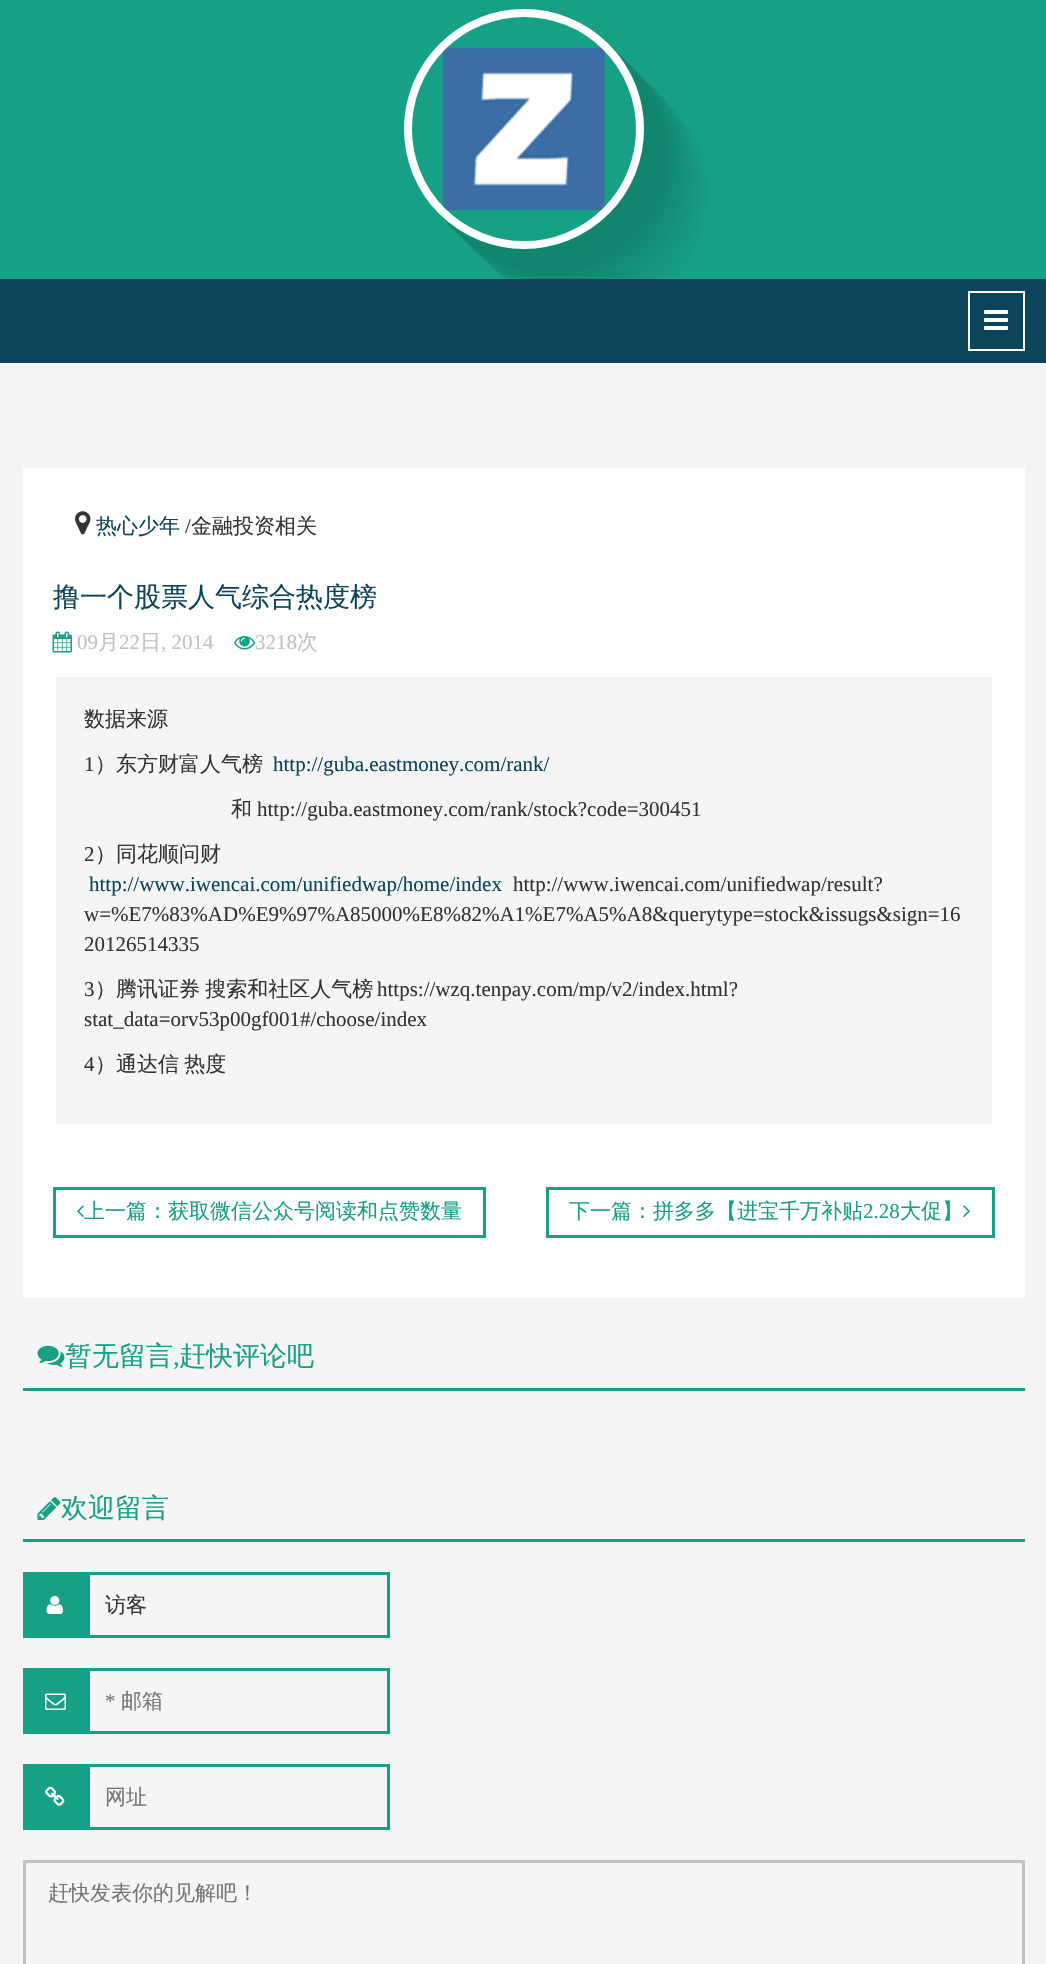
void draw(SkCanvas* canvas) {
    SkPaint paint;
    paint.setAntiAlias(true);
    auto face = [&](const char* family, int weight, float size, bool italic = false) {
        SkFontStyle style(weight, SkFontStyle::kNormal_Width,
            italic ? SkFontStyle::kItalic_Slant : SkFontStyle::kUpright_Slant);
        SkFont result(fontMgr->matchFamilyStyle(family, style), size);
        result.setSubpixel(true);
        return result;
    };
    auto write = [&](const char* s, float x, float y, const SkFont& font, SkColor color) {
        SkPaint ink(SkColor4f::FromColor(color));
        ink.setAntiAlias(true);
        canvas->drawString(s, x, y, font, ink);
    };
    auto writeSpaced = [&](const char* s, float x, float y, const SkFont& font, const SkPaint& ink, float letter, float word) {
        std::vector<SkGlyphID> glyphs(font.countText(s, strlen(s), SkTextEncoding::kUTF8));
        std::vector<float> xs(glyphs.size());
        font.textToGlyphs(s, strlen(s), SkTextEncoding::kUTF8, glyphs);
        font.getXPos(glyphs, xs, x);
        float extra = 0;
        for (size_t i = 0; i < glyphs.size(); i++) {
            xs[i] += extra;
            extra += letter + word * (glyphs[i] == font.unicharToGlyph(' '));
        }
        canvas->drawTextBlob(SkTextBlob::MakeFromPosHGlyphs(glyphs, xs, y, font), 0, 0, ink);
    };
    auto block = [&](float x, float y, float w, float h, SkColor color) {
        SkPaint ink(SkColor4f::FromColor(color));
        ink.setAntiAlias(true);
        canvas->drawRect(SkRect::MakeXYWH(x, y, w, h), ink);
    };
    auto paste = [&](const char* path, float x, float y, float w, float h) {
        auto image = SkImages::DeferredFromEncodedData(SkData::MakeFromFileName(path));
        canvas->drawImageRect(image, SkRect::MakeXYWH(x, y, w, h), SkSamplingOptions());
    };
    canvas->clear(SkColorSetRGB(245, 245, 245));
    block(0, 0, 1046, 279, SkColorSetRGB(22, 160, 133));
    paint.setColor(SkColorSetRGB(22, 160, 133));
    canvas->drawPath(SkPathBuilder().moveTo(479, 240).cubicTo(497, 284, 540, 315, 590, 315).cubicTo(656, 315, 710, 261, 710, 195).cubicTo(710, 144, 679, 101, 635, 84).cubicTo(675, 181, 577, 280, 479, 240).close().detach(), paint);
    paint.setColor(SkColorSetRGB(21, 159, 132));
    canvas->drawPath(SkPathBuilder().moveTo(477, 240).cubicTo(495, 283, 538, 314, 588, 314).cubicTo(654, 314, 708, 260, 708, 194).cubicTo(708, 144, 678, 102, 635, 83).cubicTo(675, 182, 575, 281, 477, 240).close().detach(), paint);
    paint.setColor(SkColorSetRGB(21, 158, 131));
    canvas->drawPath(SkPathBuilder().moveTo(477, 240).cubicTo(495, 282, 538, 312, 587, 312).cubicTo(653, 312, 707, 258, 707, 192).cubicTo(707, 142, 677, 100, 634, 81).cubicTo(676, 180, 576, 282, 477, 240).close().detach(), paint);
    paint.setColor(SkColorSetRGB(21, 157, 130));
    canvas->drawPath(SkPathBuilder().moveTo(475, 239).cubicTo(493, 281, 536, 311, 585, 311).cubicTo(651, 311, 705, 257, 705, 191).cubicTo(705, 142, 676, 100, 634, 81).cubicTo(677, 181, 574, 283, 475, 239).close().detach(), paint);
    paint.setColor(SkColorSetRGB(21, 156, 129));
    canvas->drawPath(SkPathBuilder().moveTo(475, 239).cubicTo(494, 280, 535, 309, 584, 309).cubicTo(650, 309, 704, 255, 704, 189).cubicTo(704, 140, 675, 98, 633, 79).cubicTo(653, 124, 643, 179, 608, 214).cubicTo(574, 249, 519, 259, 475, 239).close().detach(), paint);
    paint.setColor(SkColorSetRGB(21, 155, 129));
    canvas->drawPath(SkPathBuilder().moveTo(473, 238).cubicTo(492, 279, 533, 308, 582, 308).cubicTo(648, 308, 702, 254, 702, 188).cubicTo(702, 140, 674, 98, 633, 79).cubicTo(653, 124, 643, 179, 608, 214).cubicTo(573, 249, 518, 259, 473, 238).close().detach(), paint);
    paint.setColor(SkColorSetRGB(21, 154, 128));
    canvas->drawPath(SkPathBuilder().moveTo(473, 238).cubicTo(492, 278, 533, 306, 581, 306).cubicTo(647, 306, 701, 252, 701, 186).cubicTo(701, 138, 673, 96, 632, 77).cubicTo(653, 123, 644, 178, 608, 214).cubicTo(573, 249, 518, 259, 473, 238).close().detach(), paint);
    paint.setColor(SkColorSetRGB(21, 153, 127));
    canvas->drawPath(SkPathBuilder().moveTo(471, 237).cubicTo(490, 277, 531, 305, 579, 305).cubicTo(645, 305, 699, 251, 699, 185).cubicTo(699, 138, 672, 97, 632, 77).cubicTo(653, 123, 644, 178, 608, 214).cubicTo(572, 250, 516, 259, 471, 237).close().detach(), paint);
    paint.setColor(SkColorSetRGB(20, 152, 126));
    canvas->drawPath(SkPathBuilder().moveTo(471, 237).cubicTo(490, 276, 531, 303, 578, 303).cubicTo(644, 303, 698, 249, 698, 183).cubicTo(698, 136, 671, 95, 631, 75).cubicTo(654, 121, 645, 177, 608, 214).cubicTo(572, 250, 516, 259, 471, 237).close().detach(), paint);
    paint.setColor(SkColorSetRGB(20, 151, 126));
    canvas->drawPath(SkPathBuilder().moveTo(469, 236).cubicTo(488, 275, 529, 302, 576, 302).cubicTo(642, 302, 696, 248, 696, 182).cubicTo(696, 135, 670, 95, 631, 75).cubicTo(654, 121, 645, 177, 608, 214).cubicTo(572, 251, 514, 259, 469, 236).close().detach(), paint);
    paint.setColor(SkColorSetRGB(20, 151, 125));
    canvas->drawPath(SkPathBuilder().moveTo(469, 236).cubicTo(489, 274, 529, 300, 575, 300).cubicTo(641, 300, 695, 246, 695, 180).cubicTo(695, 133, 668, 93, 630, 73).cubicTo(654, 119, 646, 177, 608, 214).cubicTo(572, 251, 515, 259, 469, 236).close().detach(), paint);
    paint.setColor(SkColorSetRGB(20, 150, 124));
    canvas->drawPath(SkPathBuilder().moveTo(467, 235).cubicTo(487, 273, 527, 299, 573, 299).cubicTo(639, 299, 693, 245, 693, 179).cubicTo(693, 133, 667, 94, 630, 73).cubicTo(654, 119, 645, 177, 608, 214).cubicTo(571, 251, 513, 260, 467, 235).close().detach(), paint);
    paint.setColor(SkColorSetRGB(20, 149, 123));
    canvas->drawPath(SkPathBuilder().moveTo(467, 235).cubicTo(487, 272, 527, 297, 572, 297).cubicTo(638, 297, 692, 243, 692, 177).cubicTo(692, 131, 666, 91, 629, 71).cubicTo(654, 117, 646, 176, 608, 214).cubicTo(571, 251, 513, 260, 467, 235).close().detach(), paint);
    paint.setColor(SkColorSetRGB(20, 148, 123));
    canvas->drawPath(SkPathBuilder().moveTo(465, 234).cubicTo(485, 271, 525, 296, 570, 296).cubicTo(636, 296, 690, 242, 690, 176).cubicTo(690, 131, 665, 92, 629, 71).cubicTo(654, 118, 646, 176, 608, 214).cubicTo(570, 252, 511, 260, 465, 234).close().detach(), paint);
    paint.setColor(SkColorSetRGB(20, 147, 122));
    canvas->drawPath(SkPathBuilder().moveTo(465, 234).cubicTo(486, 270, 524, 294, 569, 294).cubicTo(635, 294, 689, 240, 689, 174).cubicTo(689, 129, 664, 90, 628, 69).cubicTo(654, 116, 647, 176, 608, 214).cubicTo(570, 252, 511, 260, 465, 234).close().detach(), paint);
    paint.setColor(SkColorSetRGB(20, 146, 121));
    canvas->drawPath(SkPathBuilder().moveTo(463, 233).cubicTo(483, 269, 522, 293, 567, 293).cubicTo(633, 293, 687, 239, 687, 173).cubicTo(687, 129, 663, 90, 628, 69).cubicTo(654, 116, 647, 176, 608, 214).cubicTo(570, 253, 509, 260, 463, 233).close().detach(), paint);
    paint.setColor(SkColorSetRGB(19, 145, 120));
    canvas->drawPath(SkPathBuilder().moveTo(463, 233).cubicTo(484, 268, 522, 291, 566, 291).cubicTo(632, 291, 686, 237, 686, 171).cubicTo(686, 127, 662, 88, 626, 67).cubicTo(654, 114, 647, 175, 608, 214).cubicTo(570, 252, 510, 260, 463, 233).close().detach(), paint);
    paint.setColor(SkColorSetRGB(19, 144, 119));
    canvas->drawPath(SkPathBuilder().moveTo(461, 231).cubicTo(482, 266, 520, 290, 564, 290).cubicTo(630, 290, 684, 236, 684, 170).cubicTo(684, 127, 661, 89, 627, 68).cubicTo(654, 114, 647, 175, 608, 214).cubicTo(569, 253, 508, 260, 461, 231).close().detach(), paint);
    paint.setColor(SkColorSetRGB(19, 143, 119));
    canvas->drawPath(SkPathBuilder().moveTo(461, 232).cubicTo(482, 265, 520, 288, 563, 288).cubicTo(629, 288, 683, 234, 683, 168).cubicTo(683, 125, 660, 86, 625, 65).cubicTo(655, 112, 648, 174, 608, 214).cubicTo(569, 253, 508, 260, 461, 232).close().detach(), paint);
    paint.setColor(SkColorSetRGB(19, 142, 118));
    canvas->drawPath(SkPathBuilder().moveTo(459, 230).cubicTo(480, 264, 518, 287, 561, 287).cubicTo(627, 287, 681, 233, 681, 167).cubicTo(681, 124, 659, 87, 626, 66).cubicTo(655, 113, 648, 174, 608, 214).cubicTo(569, 254, 506, 260, 459, 230).close().detach(), paint);
    paint.setColor(SkColorSetRGB(19, 142, 117));
    canvas->drawPath(SkPathBuilder().moveTo(459, 230).cubicTo(481, 263, 518, 285, 560, 285).cubicTo(626, 285, 680, 231, 680, 165).cubicTo(680, 122, 658, 85, 624, 64).cubicTo(655, 110, 649, 174, 608, 214).cubicTo(569, 254, 506, 260, 459, 230).close().detach(), paint);
    paint.setColor(SkColorSetRGB(19, 141, 116));
    canvas->drawPath(SkPathBuilder().moveTo(457, 229).cubicTo(478, 262, 516, 284, 558, 284).cubicTo(624, 284, 678, 230, 678, 164).cubicTo(678, 122, 657, 86, 624, 64).cubicTo(655, 111, 648, 174, 608, 214).cubicTo(568, 254, 504, 260, 457, 229).close().detach(), paint);
    paint.setColor(SkColorSetRGB(19, 140, 116));
    canvas->drawPath(SkPathBuilder().moveTo(458, 229).cubicTo(500, 291, 588, 300, 642, 247).cubicTo(696, 193, 686, 103, 623, 62).cubicTo(655, 109, 649, 173, 608, 214).cubicTo(568, 254, 505, 260, 458, 229).close().detach(), paint);
    paint.setColor(SkColorSetRGB(18, 139, 115));
    canvas->drawPath(SkPathBuilder().moveTo(455, 228).cubicTo(497, 290, 586, 299, 640, 246).cubicTo(693, 193, 684, 105, 623, 62).cubicTo(655, 109, 649, 173, 608, 214).cubicTo(567, 255, 502, 260, 455, 228).close().detach(), paint);
    paint.setColor(SkColorSetRGB(18, 138, 114));
    canvas->drawPath(SkPathBuilder().moveTo(456, 228).cubicTo(498, 288, 586, 297, 639, 244).cubicTo(692, 191, 683, 102, 622, 60).cubicTo(655, 107, 650, 172, 608, 214).cubicTo(568, 255, 503, 260, 456, 228).close().detach(), paint);
    paint.setColor(SkColorSetRGB(18, 137, 113));
    canvas->drawPath(SkPathBuilder().moveTo(453, 226).cubicTo(496, 287, 584, 296, 637, 243).cubicTo(689, 190, 681, 103, 622, 61).cubicTo(655, 108, 649, 173, 608, 214).cubicTo(567, 256, 501, 260, 453, 226).close().detach(), paint);
    paint.setColor(SkColorSetRGB(18, 136, 113));
    canvas->drawPath(SkPathBuilder().moveTo(454, 227).cubicTo(497, 286, 584, 293, 636, 241).cubicTo(689, 188, 680, 101, 620, 58).cubicTo(655, 105, 650, 172, 608, 214).cubicTo(567, 255, 501, 260, 454, 227).close().detach(), paint);
    paint.setColor(SkColorSetRGB(18, 135, 112));
    canvas->drawPath(SkPathBuilder().moveTo(452, 225).cubicTo(494, 284, 581, 292, 634, 240).cubicTo(686, 188, 679, 102, 621, 59).cubicTo(655, 106, 650, 172, 608, 214).cubicTo(566, 256, 499, 260, 452, 225).close().detach(), paint);
    paint.setColor(SkColorSetRGB(18, 134, 111));
    canvas->drawPath(SkPathBuilder().moveTo(453, 226).cubicTo(496, 283, 581, 289, 633, 238).cubicTo(685, 186, 678, 99, 619, 56).cubicTo(655, 103, 651, 171, 608, 214).cubicTo(566, 256, 500, 260, 453, 226).close().detach(), paint);
    paint.setColor(SkColorSetRGB(18, 133, 110));
    canvas->drawPath(SkPathBuilder().moveTo(450, 224).cubicTo(493, 282, 579, 289, 631, 237).cubicTo(682, 186, 676, 101, 620, 57).cubicTo(655, 105, 651, 172, 608, 214).cubicTo(565, 257, 497, 260, 450, 224).close().detach(), paint);
    canvas->drawPath(SkPathBuilder().moveTo(451, 225).cubicTo(495, 280, 579, 286, 630, 235).cubicTo(681, 183, 675, 98, 617, 54).cubicTo(655, 102, 652, 171, 608, 214).cubicTo(566, 256, 498, 260, 451, 225).close().detach(), paint);
    canvas->drawPath(SkPathBuilder().moveTo(448, 222).cubicTo(492, 279, 577, 285, 628, 234).cubicTo(678, 183, 673, 100, 619, 56).cubicTo(655, 103, 651, 171, 608, 214).cubicTo(565, 257, 495, 261, 448, 222).close().detach(), paint);
    canvas->drawPath(SkPathBuilder().moveTo(450, 224).cubicTo(494, 277, 577, 282, 627, 232).cubicTo(678, 181, 672, 96, 616, 52).cubicTo(655, 100, 652, 170, 608, 214).cubicTo(565, 257, 497, 260, 450, 224).close().detach(), paint);
    canvas->drawPath(SkPathBuilder().moveTo(446, 221).cubicTo(490, 276, 574, 282, 625, 231).cubicTo(675, 181, 671, 99, 617, 54).cubicTo(655, 102, 652, 171, 608, 214).cubicTo(564, 258, 493, 260, 446, 221).close().detach(), paint);
    canvas->drawPath(SkPathBuilder().moveTo(448, 222).cubicTo(493, 275, 574, 278, 624, 229).cubicTo(674, 178, 669, 95, 614, 51).cubicTo(655, 98, 653, 169, 608, 214).cubicTo(565, 257, 495, 261, 448, 222).close().detach(), paint);
    canvas->drawPath(SkPathBuilder().moveTo(444, 219).cubicTo(489, 273, 572, 278, 622, 228).cubicTo(671, 179, 668, 98, 616, 53).cubicTo(655, 100, 652, 170, 608, 214).cubicTo(563, 259, 491, 260, 444, 219).close().detach(), paint);
    canvas->drawPath(SkPathBuilder().moveTo(447, 221).cubicTo(492, 272, 572, 275, 621, 226).cubicTo(671, 176, 666, 93, 613, 49).cubicTo(655, 96, 654, 169, 608, 214).cubicTo(564, 258, 494, 261, 447, 221).close().detach(), paint);
    canvas->drawPath(SkPathBuilder().moveTo(442, 217).cubicTo(487, 270, 569, 275, 619, 225).cubicTo(667, 177, 665, 98, 615, 52).cubicTo(655, 99, 652, 170, 608, 214).cubicTo(563, 260, 489, 260, 442, 217).close().detach(), paint);
    canvas->drawPath(SkPathBuilder().moveTo(446, 220).cubicTo(492, 269, 570, 271, 618, 223).cubicTo(668, 173, 664, 91, 611, 47).cubicTo(655, 93, 654, 168, 608, 214).cubicTo(564, 258, 493, 260, 446, 220).close().detach(), paint);
    canvas->drawPath(SkPathBuilder().moveTo(440, 215).cubicTo(485, 268, 566, 271, 616, 222).cubicTo(663, 174, 662, 97, 615, 51).cubicTo(655, 98, 653, 169, 608, 214).cubicTo(562, 260, 486, 260, 440, 215).close().detach(), paint);
    canvas->drawPath(SkPathBuilder().moveTo(445, 220).cubicTo(492, 266, 568, 267, 615, 220).cubicTo(664, 170, 661, 89, 608, 44).cubicTo(655, 90, 655, 167, 608, 214).cubicTo(564, 258, 492, 260, 445, 220).close().detach(), paint);
    canvas->drawPath(SkPathBuilder().moveTo(437, 212).cubicTo(482, 265, 563, 269, 613, 219).cubicTo(659, 173, 659, 98, 615, 51).cubicTo(655, 98, 653, 170, 608, 214).cubicTo(561, 262, 483, 260, 437, 212).close().detach(), paint);
    canvas->drawPath(SkPathBuilder().moveTo(447, 222).cubicTo(494, 263, 567, 262, 612, 217).cubicTo(662, 167, 657, 84, 603, 39).cubicTo(654, 85, 657, 165, 608, 214).cubicTo(565, 258, 494, 261, 447, 222).close().detach(), paint);
    canvas->drawPath(SkPathBuilder().moveTo(428, 202).cubicTo(466, 253, 539, 267, 592, 231).cubicTo(650, 192, 662, 112, 620, 58).cubicTo(660, 112, 647, 190, 591, 229).cubicTo(538, 264, 466, 252, 428, 202).close().detach(), paint);
    paint.setColor(SkColorSetRGB(22, 160, 133));
    canvas->drawCircle(524, 129, 120, paint);
    paste("pic1.png", 442, 47, 163, 164);
    paint.setStyle(SkPaint::kStroke_Style);
    paint.setStrokeWidth(8);
    paint.setColor(SK_ColorWHITE);
    canvas->drawCircle(524, 129, 116, paint);
    block(0, 279, 1046, 84, SkColorSetRGB(11, 68, 91));
    paint.setStrokeWidth(2);
    canvas->drawRect(SkRect::MakeXYWH(969, 292, 55, 58), paint);
    paste("pic2.png", 984, 310, 24, 20);
    block(23, 468, 1002, 830, SK_ColorWHITE);
    paste("pic3.png", 75, 511, 16, 24);
    auto kFont1 = face("WenQuanYi Zen Hei", 500, 21);
    write("热心少年", 96, 533, kFont1, SkColorSetRGB(11, 68, 91));
    auto kFont2 = face("Liberation Serif", 400, 21);
    write("/", 185, 533, kFont2, SkColorSetRGB(51, 51, 51));
    write("金融投资相关", 191, 533, kFont1, SkColorSetRGB(51, 51, 51));
    auto kFont3 = face("WenQuanYi Zen Hei", 500, 27);
    write("撸一个股票人气综合热度榜", 53, 606, kFont3, SkColorSetRGB(11, 68, 91));
    paste("pic4.png", 52, 631, 20, 22);
    write("09", 77, 649, kFont2, SkColorSetRGB(193, 193, 193));
    write("月", 98, 649, kFont1, SkColorSetRGB(193, 193, 193));
    write("22", 119, 649, kFont2, SkColorSetRGB(193, 193, 193));
    write("日", 140, 649, kFont1, SkColorSetRGB(193, 193, 193));
    write(", 2014", 161, 649, kFont2, SkColorSetRGB(193, 193, 193));
    paste("pic5.png", 234, 636, 21, 14);
    write("3218", 255, 649, kFont2, SkColorSetRGB(193, 193, 193));
    write("次", 297, 649, kFont1, SkColorSetRGB(193, 193, 193));
    block(56, 677, 936, 447, SkColorSetRGB(245, 245, 245));
    write("数据来源", 84, 726, kFont1, SkColorSetRGB(51, 51, 51));
    write("1", 84, 771, kFont2, SkColorSetRGB(51, 51, 51));
    write("）东方财富人气榜", 95, 771, kFont1, SkColorSetRGB(51, 51, 51));
    write("http://guba.eastmoney.com/rank/", 273, 771, kFont2, SkColorSetRGB(11, 68, 91));
    write("和", 231, 816, kFont1, SkColorSetRGB(51, 51, 51));
    write("http://guba.eastmoney.com/rank/stock?code=300451", 257, 816, kFont2, SkColorSetRGB(51, 51, 51));
    write("2", 84, 861, kFont2, SkColorSetRGB(51, 51, 51));
    write("）同花顺问财", 95, 861, kFont1, SkColorSetRGB(51, 51, 51));
    write("http://www.iwencai.com/unifiedwap/home/index", 89, 891, kFont2, SkColorSetRGB(11, 68, 91));
    write("http://www.iwencai.com/unifiedwap/result?", 513, 891, kFont2, SkColorSetRGB(51, 51, 51));
    write("w=%E7%83%AD%E9%97%A85000%E8%82%A1%E7%A5%A8&querytype=stock&issugs&sign=16", 84, 921, kFont2, SkColorSetRGB(51, 51, 51));
    write("20126514335", 84, 951, kFont2, SkColorSetRGB(51, 51, 51));
    write("3", 84, 996, kFont2, SkColorSetRGB(51, 51, 51));
    paint.setStyle(SkPaint::kFill_Style);
    paint.setColor(SkColorSetRGB(51, 51, 51));
    writeSpaced("）腾讯证券 搜索和社区人气榜", 95, 996, kFont1, paint, 0, -1);
    write("https://wzq.tenpay.com/mp/v2/index.html?", 377, 996, kFont2, SkColorSetRGB(51, 51, 51));
    write("stat_data=orv53p00gf001#/choose/index", 84, 1026, kFont2, SkColorSetRGB(51, 51, 51));
    write("4", 84, 1071, kFont2, SkColorSetRGB(51, 51, 51));
    writeSpaced("）通达信 热度", 95, 1071, kFont1, paint, 0, -1);
    paint.setStyle(SkPaint::kStroke_Style);
    paint.setStrokeWidth(3);
    paint.setColor(SkColorSetRGB(22, 160, 133));
    canvas->drawRect(SkRect::MakeXYWH(54.5f, 1188.5f, 430, 48), paint);
    paste("pic6.png", 77, 1205, 7, 12);
    write("上一篇：获取微信公众号阅读和点赞数量", 84, 1218, kFont1, SkColorSetRGB(22, 160, 133));
    canvas->drawRect(SkRect::MakeXYWH(547.5f, 1188.5f, 446, 48), paint);
    write("下一篇：拼多多【进宝千万补贴", 569, 1218, kFont1, SkColorSetRGB(22, 160, 133));
    write("2.28", 863, 1218, kFont2, SkColorSetRGB(22, 160, 133));
    write("大促】", 900, 1218, kFont1, SkColorSetRGB(22, 160, 133));
    paste("pic7.png", 963, 1205, 7, 12);
    block(23, 1388, 1002, 3, SkColorSetRGB(22, 160, 133));
    paste("pic8.png", 37, 1345, 28, 22);
    write("暂无留言", 65, 1365, kFont3, SkColorSetRGB(22, 160, 133));
    auto kFont4 = face("Liberation Serif", 400, 27);
    write(",", 173, 1365, kFont4, SkColorSetRGB(22, 160, 133));
    write("赶快评论吧", 179, 1365, kFont3, SkColorSetRGB(22, 160, 133));
    block(23, 1539, 1002, 3, SkColorSetRGB(22, 160, 133));
    paste("pic9.png", 37, 1497, 24, 23);
    write("欢迎留言", 61, 1517, kFont3, SkColorSetRGB(22, 160, 133));
    block(23, 1572, 64, 66, SkColorSetRGB(22, 160, 133));
    paste("pic10.png", 46, 1596, 17, 18);
    canvas->drawRect(SkRect::MakeXYWH(88.5f, 1573.5f, 300, 63), paint);
    write("访客", 105, 1612, kFont1, SkColorSetRGB(51, 51, 51));
    block(23, 1668, 64, 66, SkColorSetRGB(22, 160, 133));
    paste("pic11.png", 45, 1693, 21, 17);
    canvas->drawRect(SkRect::MakeXYWH(88.5f, 1669.5f, 300, 63), paint);
    write("*", 105, 1708, kFont2, SkColorSetRGB(117, 117, 117));
    write("邮箱", 121, 1708, kFont1, SkColorSetRGB(117, 117, 117));
    block(23, 1764, 64, 66, SkColorSetRGB(22, 160, 133));
    paste("pic12.png", 45, 1786, 20, 20);
    canvas->drawRect(SkRect::MakeXYWH(88.5f, 1765.5f, 300, 63), paint);
    write("网址", 105, 1804, kFont1, SkColorSetRGB(117, 117, 117));
    paint.setColor(SkColorSetRGB(193, 193, 193));
    canvas->drawRect(SkRect::MakeXYWH(24.5f, 1861.5f, 999, 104), paint);
    write("赶快发表你的见解吧！", 48, 1900, kFont1, SkColorSetRGB(117, 117, 117));
}
